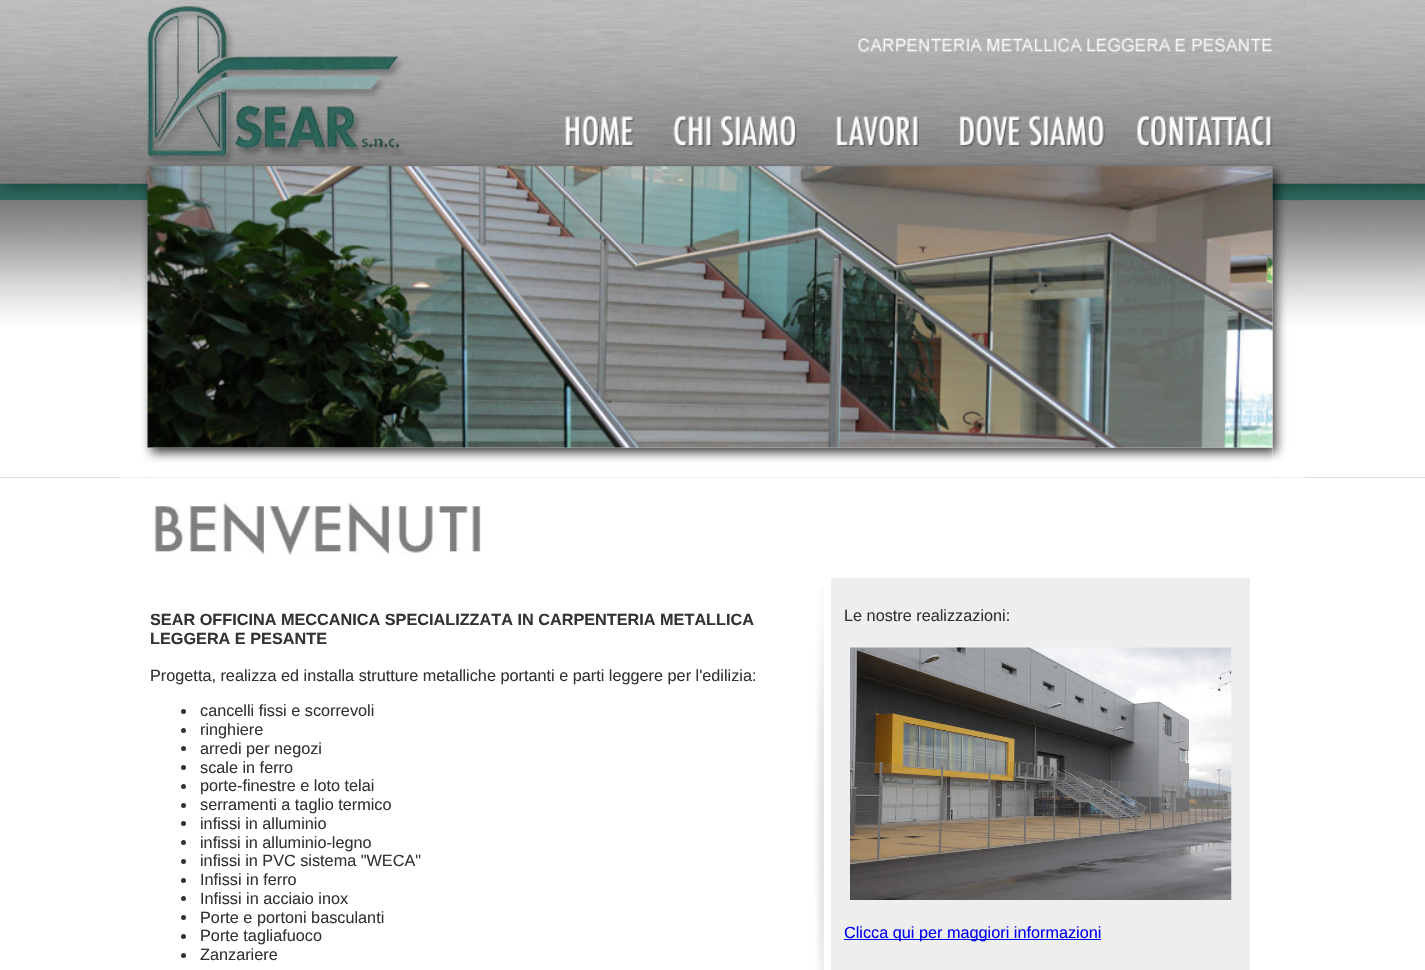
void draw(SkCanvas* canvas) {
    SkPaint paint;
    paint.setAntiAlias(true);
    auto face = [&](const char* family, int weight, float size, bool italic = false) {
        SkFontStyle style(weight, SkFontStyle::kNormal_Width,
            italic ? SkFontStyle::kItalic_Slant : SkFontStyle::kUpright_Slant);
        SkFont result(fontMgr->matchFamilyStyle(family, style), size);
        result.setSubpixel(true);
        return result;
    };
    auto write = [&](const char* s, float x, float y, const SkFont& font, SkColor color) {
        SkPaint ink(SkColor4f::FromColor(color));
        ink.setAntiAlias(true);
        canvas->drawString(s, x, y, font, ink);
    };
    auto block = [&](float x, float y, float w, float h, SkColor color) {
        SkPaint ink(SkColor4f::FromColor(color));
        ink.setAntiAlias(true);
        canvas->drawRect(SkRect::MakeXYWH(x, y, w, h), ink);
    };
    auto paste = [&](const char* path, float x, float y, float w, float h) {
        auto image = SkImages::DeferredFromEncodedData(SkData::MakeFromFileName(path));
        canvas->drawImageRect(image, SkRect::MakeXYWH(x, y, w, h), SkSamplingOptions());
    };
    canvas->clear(SK_ColorWHITE);
    block(0, 477, 1425, 1, SkColorSetRGB(184, 184, 184));
    paste("pic1.png", 0, 0, 1425, 478);
    paste("pic2.png", 119, 0, 1187, 167);
    paste("pic3.png", 118, 166, 30, 312);
    paste("pic5.png", 1272, 166, 35, 312);
    paste("pic6.png", 147, 447, 1126, 31);
    paste("pic4.png", 147, 166, 1126, 282);
    paste("pic7.png", 154, 502, 327, 54);
    auto kFont1 = face("Liberation Sans", 700, 16.25f);
    write("SEAR OFFICINA MECCANICA SPECIALIZZATA IN CARPENTERIA METALLICA", 150, 625, kFont1, SkColorSetRGB(51, 51, 51));
    write("LEGGERA E PESANTE", 150, 644, kFont1, SkColorSetRGB(51, 51, 51));
    auto kFont2 = face("Liberation Sans", 400, 16.25f);
    write("Progetta, realizza ed installa strutture metalliche portanti e parti leggere per l'edilizia:", 150, 681, kFont2, SkColorSetRGB(51, 51, 51));
    paint.setColor(SkColorSetRGB(51, 51, 51));
    canvas->drawCircle(183.5f, 711.5f, 2.5f, paint);
    write("cancelli fissi e scorrevoli", 200, 716, kFont2, SkColorSetRGB(51, 51, 51));
    canvas->drawCircle(183.5f, 730.5f, 2.5f, paint);
    write("ringhiere", 200, 735, kFont2, SkColorSetRGB(51, 51, 51));
    canvas->drawCircle(183.5f, 748.5f, 2.5f, paint);
    write("arredi per negozi", 200, 754, kFont2, SkColorSetRGB(51, 51, 51));
    canvas->drawCircle(183.5f, 767.5f, 2.5f, paint);
    write("scale in ferro", 200, 773, kFont2, SkColorSetRGB(51, 51, 51));
    canvas->drawCircle(183.5f, 786.5f, 2.5f, paint);
    write("porte-finestre e loto telai", 200, 791, kFont2, SkColorSetRGB(51, 51, 51));
    canvas->drawCircle(183.5f, 805.5f, 2.5f, paint);
    write("serramenti a taglio termico", 200, 810, kFont2, SkColorSetRGB(51, 51, 51));
    canvas->drawCircle(183.5f, 823.5f, 2.5f, paint);
    write("infissi in alluminio", 200, 829, kFont2, SkColorSetRGB(51, 51, 51));
    canvas->drawCircle(183.5f, 842.5f, 2.5f, paint);
    write("infissi in alluminio-legno", 200, 848, kFont2, SkColorSetRGB(51, 51, 51));
    canvas->drawCircle(183.5f, 861.5f, 2.5f, paint);
    write("infissi in PVC sistema \"WECA\"", 200, 866, kFont2, SkColorSetRGB(51, 51, 51));
    canvas->drawCircle(183.5f, 880.5f, 2.5f, paint);
    write("Infissi in ferro", 200, 885, kFont2, SkColorSetRGB(51, 51, 51));
    canvas->drawCircle(183.5f, 898.5f, 2.5f, paint);
    write("Infissi in acciaio inox", 200, 904, kFont2, SkColorSetRGB(51, 51, 51));
    canvas->drawCircle(183.5f, 917.5f, 2.5f, paint);
    write("Porte e portoni basculanti", 200, 923, kFont2, SkColorSetRGB(51, 51, 51));
    canvas->drawCircle(183.5f, 936.5f, 2.5f, paint);
    write("Porte tagliafuoco", 200, 941, kFont2, SkColorSetRGB(51, 51, 51));
    canvas->drawCircle(183.5f, 955.5f, 2.5f, paint);
    write("Zanzariere", 200, 960, kFont2, SkColorSetRGB(51, 51, 51));
    paste("pic8.png", 815, 586, 9, 384);
    block(831, 578, 419, 392, SkColorSetRGB(238, 238, 238));
    write("Le nostre realizzazioni:", 844, 621, kFont2, SkColorSetRGB(51, 51, 51));
    paste("pic9.png", 850, 647, 382, 253);
    block(844, 939, 257, 1, SkColorSetRGB(0, 0, 238));
    write("Clicca qui per maggiori informazioni", 844, 938, kFont2, SkColorSetRGB(0, 0, 238));
}
